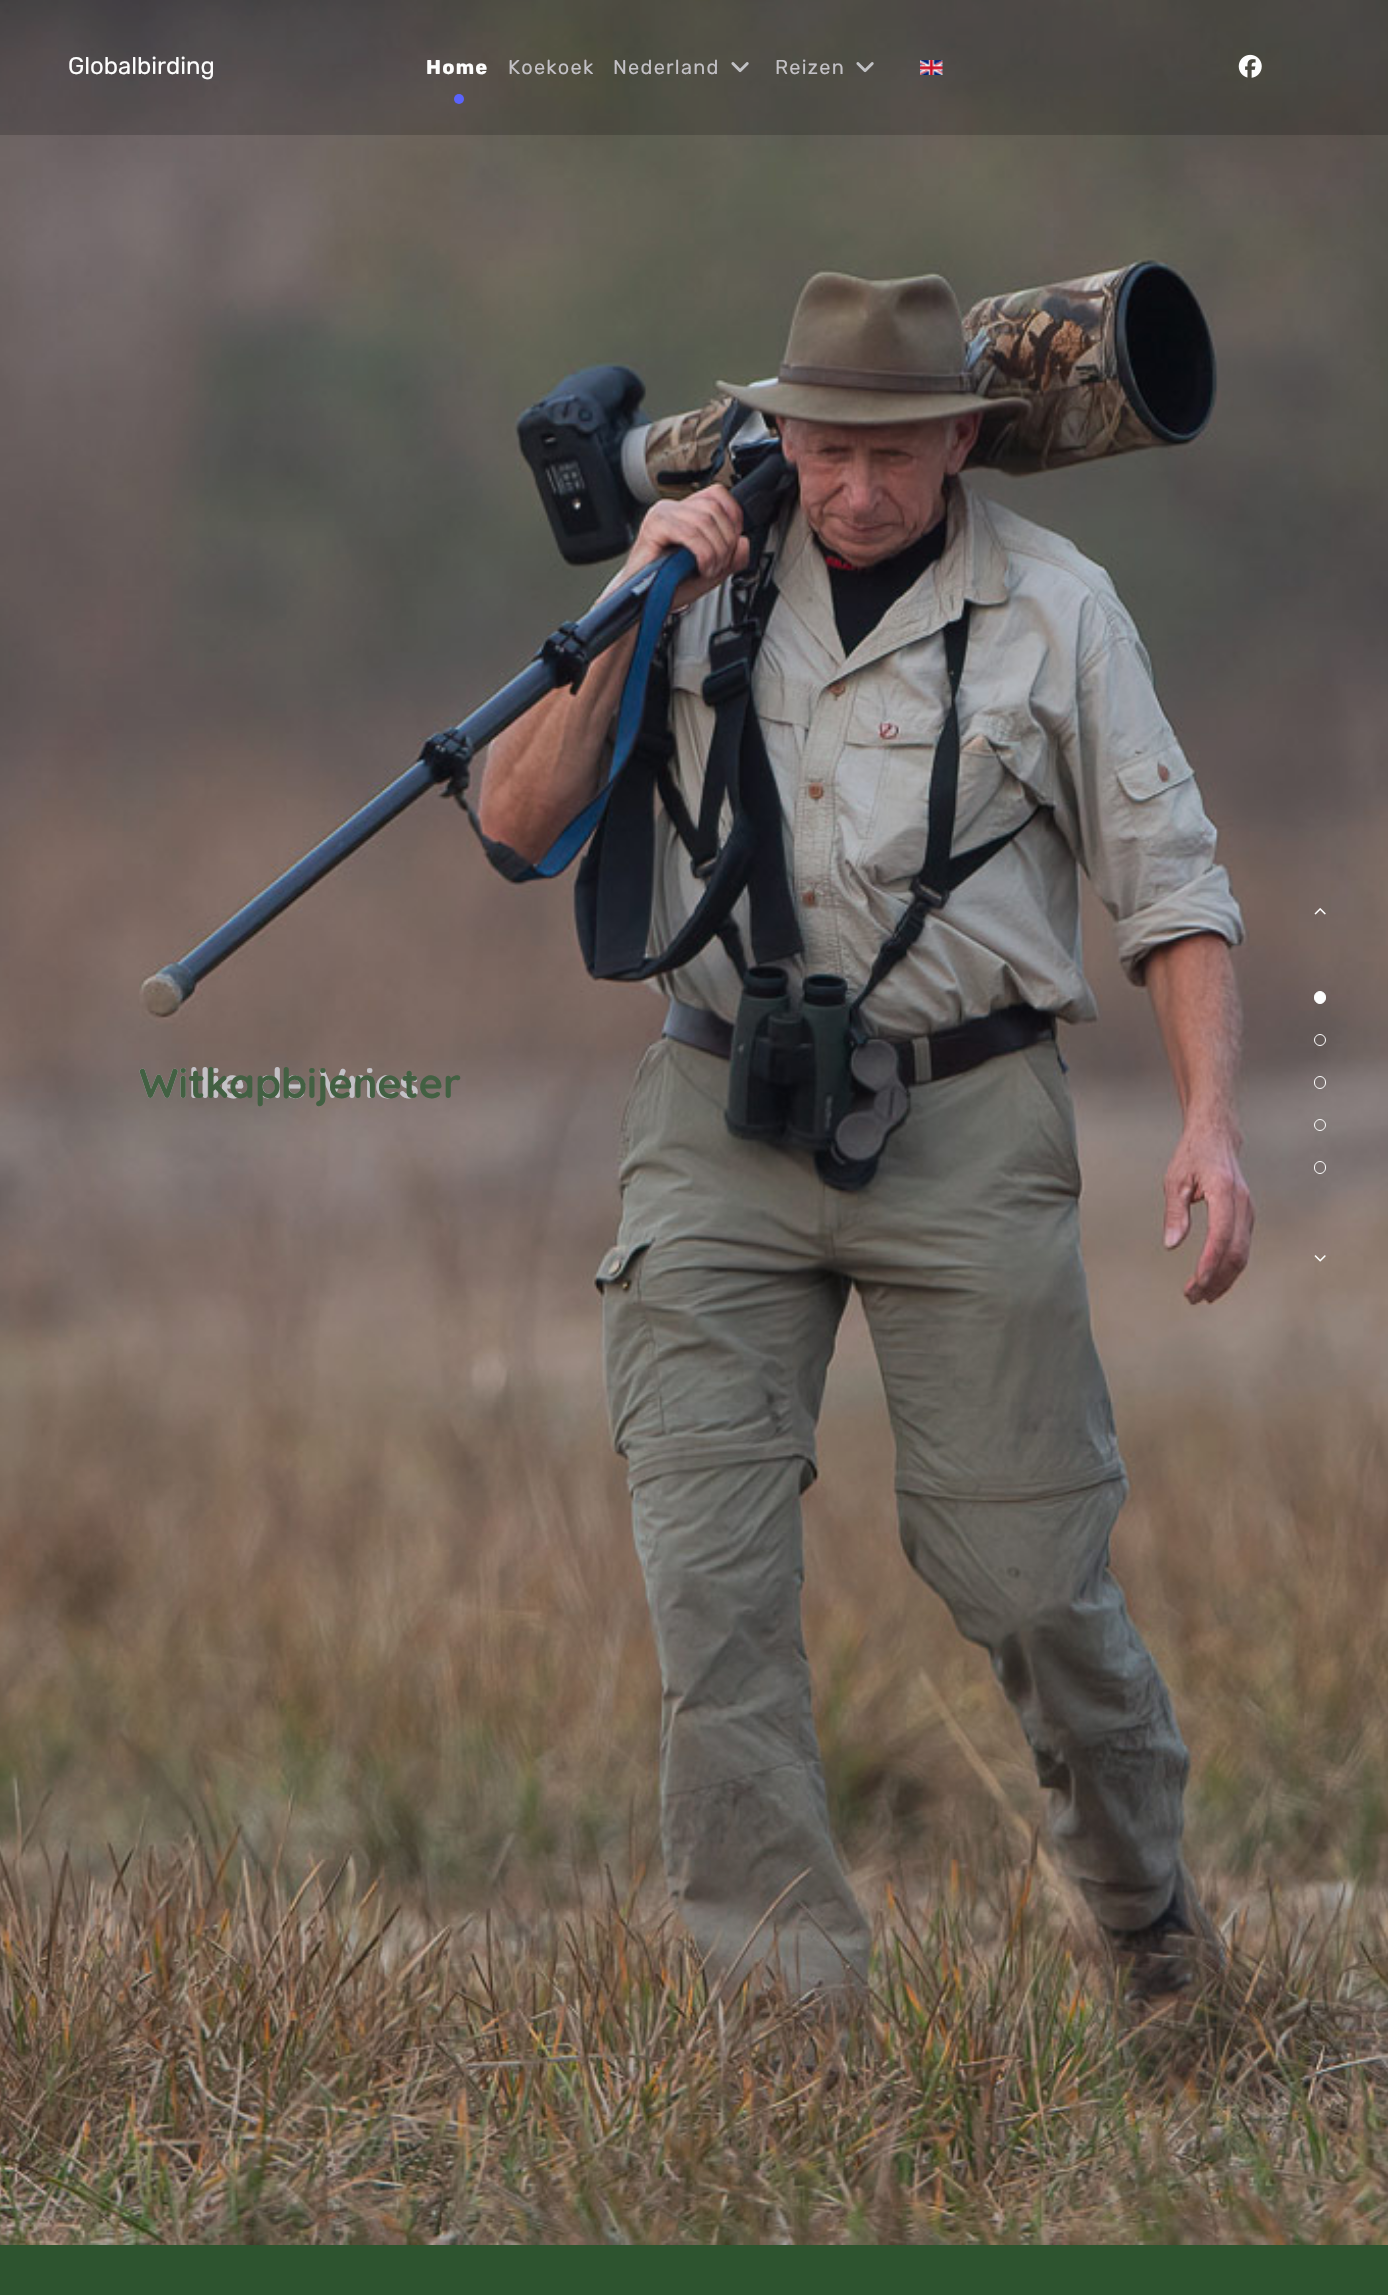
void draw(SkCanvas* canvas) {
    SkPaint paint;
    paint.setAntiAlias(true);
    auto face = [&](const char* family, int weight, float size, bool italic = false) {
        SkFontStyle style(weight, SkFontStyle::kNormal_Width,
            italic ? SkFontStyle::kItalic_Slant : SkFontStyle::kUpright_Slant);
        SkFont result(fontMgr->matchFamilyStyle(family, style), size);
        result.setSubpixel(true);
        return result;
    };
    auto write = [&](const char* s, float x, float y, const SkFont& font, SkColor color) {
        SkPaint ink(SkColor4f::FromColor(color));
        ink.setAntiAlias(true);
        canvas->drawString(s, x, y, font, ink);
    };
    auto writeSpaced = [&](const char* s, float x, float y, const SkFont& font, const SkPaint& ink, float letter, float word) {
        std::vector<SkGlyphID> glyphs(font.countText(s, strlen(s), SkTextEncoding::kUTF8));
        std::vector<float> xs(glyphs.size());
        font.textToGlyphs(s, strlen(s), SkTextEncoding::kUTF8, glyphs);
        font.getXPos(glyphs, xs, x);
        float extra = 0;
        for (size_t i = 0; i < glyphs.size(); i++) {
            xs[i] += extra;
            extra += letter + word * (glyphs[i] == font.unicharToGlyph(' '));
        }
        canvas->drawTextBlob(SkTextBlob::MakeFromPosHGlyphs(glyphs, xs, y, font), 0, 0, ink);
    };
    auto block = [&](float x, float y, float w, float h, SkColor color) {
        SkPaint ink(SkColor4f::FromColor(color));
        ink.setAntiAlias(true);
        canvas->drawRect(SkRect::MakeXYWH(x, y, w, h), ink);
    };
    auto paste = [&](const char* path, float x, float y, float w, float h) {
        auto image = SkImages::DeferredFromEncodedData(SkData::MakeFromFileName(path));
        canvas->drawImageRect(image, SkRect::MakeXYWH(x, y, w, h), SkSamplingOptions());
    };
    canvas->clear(SkColorSetRGB(45, 84, 47));
    paste("pic5.png", 0, 0, 1388, 2245);
    block(0, 0, 1388, 135, SkColorSetARGB(48, 0, 1, 0));
    auto kFont1 = face("Rubik", 400, 24);
    write("Globalbirding", 68, 74, kFont1, SkColorSetRGB(253, 253, 253));
    auto kFont2 = face("Rubik", 700, 20);
    paint.setColor(SkColorSetRGB(253, 253, 253));
    writeSpaced("Home", 426, 74, kFont2, paint, 1.25f, 0);
    paint.setColor(SkColorSetRGB(90, 99, 253));
    canvas->drawCircle(459, 99, 5, paint);
    auto kFont3 = face("Rubik", 400, 20);
    paint.setColor(SkColorSetRGB(195, 193, 198));
    writeSpaced("Koekoek", 508, 74, kFont3, paint, 1.25f, 0);
    writeSpaced("Nederland", 613, 74, kFont3, paint, 1.25f, 0);
    paste("pic1.png", 731, 62, 18, 11);
    writeSpaced("Reizen", 775, 74, kFont3, paint, 1.25f, 0);
    paste("pic2.png", 856, 62, 18, 11);
    paste("pic3.png", 920, 60, 23, 15);
    paste("pic4.png", 1238, 54, 24, 24);
    auto kFont4 = face("Quicksand", 700, 41.75f);
    write("Willie de Vries", 139, 1098, kFont4, SkColorSetRGB(195, 193, 198));
    write("Witkapbijeneter", 139, 1098, kFont4, SkColorSetRGB(66, 96, 66));
    paste("pic6.png", 1314, 908, 12, 7);
    paint.setColor(SkColorSetRGB(253, 253, 253));
    canvas->drawRoundRect(SkRect::MakeXYWH(1314.5f, 991.5f, 11, 12), 5.5f, 5.5f, paint);
    paint.setStyle(SkPaint::kStroke_Style);
    paint.setStrokeWidth(1);
    canvas->drawRoundRect(SkRect::MakeXYWH(1314.5f, 991.5f, 11, 12), 5.5f, 5.5f, paint);
    canvas->drawCircle(1320, 1040, 5.5f, paint);
    canvas->drawRoundRect(SkRect::MakeXYWH(1314.5f, 1076.5f, 11, 12), 5.5f, 5.5f, paint);
    canvas->drawCircle(1320, 1125, 5.5f, paint);
    canvas->drawRoundRect(SkRect::MakeXYWH(1314.5f, 1161.5f, 11, 12), 5.5f, 5.5f, paint);
    paste("pic7.png", 1314, 1255, 12, 7);
}
